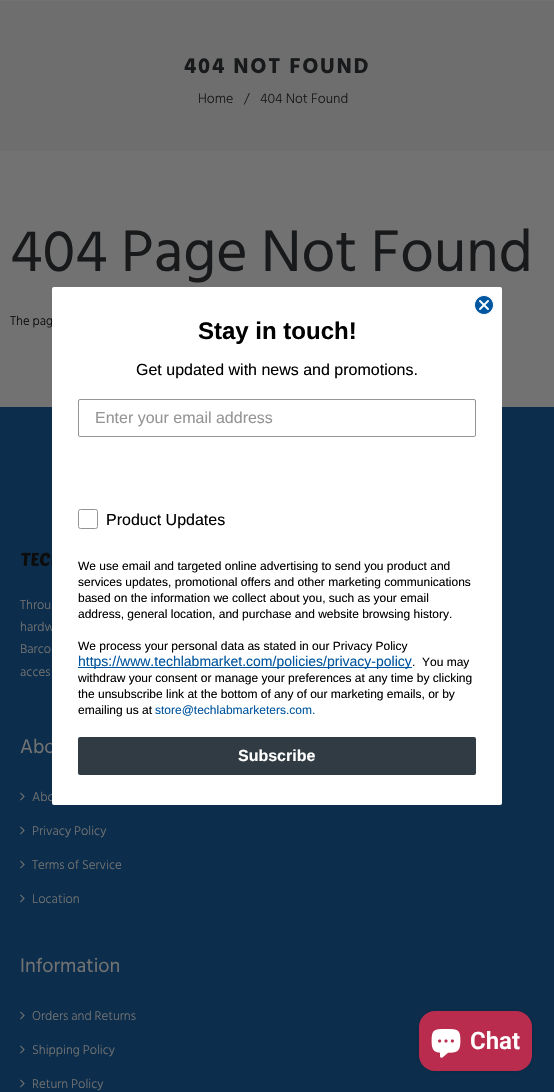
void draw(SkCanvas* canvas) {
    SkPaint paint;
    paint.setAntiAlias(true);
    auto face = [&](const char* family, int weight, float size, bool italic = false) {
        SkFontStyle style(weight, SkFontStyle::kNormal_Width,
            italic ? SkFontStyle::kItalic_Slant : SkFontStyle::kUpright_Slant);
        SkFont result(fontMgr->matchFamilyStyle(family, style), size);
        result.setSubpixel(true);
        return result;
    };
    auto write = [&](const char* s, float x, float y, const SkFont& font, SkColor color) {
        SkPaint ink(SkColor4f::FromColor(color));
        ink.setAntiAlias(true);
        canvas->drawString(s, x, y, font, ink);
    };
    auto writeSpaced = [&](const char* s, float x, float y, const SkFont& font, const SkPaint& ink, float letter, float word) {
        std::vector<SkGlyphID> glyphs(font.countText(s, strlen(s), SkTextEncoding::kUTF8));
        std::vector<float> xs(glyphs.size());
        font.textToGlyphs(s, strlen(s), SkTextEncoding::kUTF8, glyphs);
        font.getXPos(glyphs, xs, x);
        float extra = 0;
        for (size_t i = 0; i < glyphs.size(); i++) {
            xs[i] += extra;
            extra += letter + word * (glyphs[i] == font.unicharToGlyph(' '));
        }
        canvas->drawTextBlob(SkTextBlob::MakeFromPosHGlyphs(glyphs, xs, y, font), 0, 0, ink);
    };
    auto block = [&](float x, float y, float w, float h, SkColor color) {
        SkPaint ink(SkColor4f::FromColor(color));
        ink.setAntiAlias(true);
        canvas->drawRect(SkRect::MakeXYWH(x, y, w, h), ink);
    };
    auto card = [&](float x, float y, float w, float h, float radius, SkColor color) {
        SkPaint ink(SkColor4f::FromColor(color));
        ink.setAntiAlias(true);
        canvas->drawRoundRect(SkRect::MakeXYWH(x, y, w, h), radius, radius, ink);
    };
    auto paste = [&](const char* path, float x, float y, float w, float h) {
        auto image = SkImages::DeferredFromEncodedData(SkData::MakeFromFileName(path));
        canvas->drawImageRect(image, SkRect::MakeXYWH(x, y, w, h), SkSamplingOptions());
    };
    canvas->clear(SkColorSetRGB(114, 114, 114));
    block(0, 1, 554, 150, SkColorSetRGB(110, 110, 110));
    auto kFont1 = face("Hind Siliguri", 700, 22);
    paint.setColor(SkColorSetRGB(24, 25, 26));
    writeSpaced("404 NOT FOUND", 184, 73, kFont1, paint, 1.75f, 0);
    auto kFont2 = face("Hind Siliguri", 300, 14);
    write("Home", 198, 103, kFont2, SkColorSetRGB(24, 25, 26));
    write("/", 244, 103, kFont2, SkColorSetRGB(24, 25, 26));
    write("404 Not Found", 260, 103, kFont2, SkColorSetRGB(24, 25, 26));
    auto kFont3 = face("Hind Siliguri", 400, 60);
    write("404 Page Not Found", 10, 271, kFont3, SkColorSetRGB(24, 25, 26));
    auto kFont4 = face("Hind Siliguri", 300, 13);
    write("The pag", 10, 325, kFont4, SkColorSetRGB(12, 12, 12));
    block(0, 407, 554, 685, SkColorSetRGB(12, 46, 76));
    paste("pic1.png", 21, 552, 31, 14);
    write("Throu", 20, 609, kFont4, SkColorSetRGB(114, 114, 114));
    write("hardw", 20, 631, kFont4, SkColorSetRGB(114, 114, 114));
    write("Barco", 20, 653, kFont4, SkColorSetRGB(114, 114, 114));
    write("acces", 20, 676, kFont4, SkColorSetRGB(114, 114, 114));
    auto kFont5 = face("Hind Siliguri", 400, 20);
    write("Abo", 20, 753, kFont5, SkColorSetRGB(114, 114, 114));
    paste("pic2.png", 20, 792, 5, 9);
    write("Abo", 32, 801, kFont4, SkColorSetRGB(114, 114, 114));
    paste("pic2.png", 20, 826, 5, 9);
    write("Privacy Policy", 32, 835, kFont4, SkColorSetRGB(114, 114, 114));
    paste("pic2.png", 20, 860, 5, 9);
    write("Terms of Service", 32, 869, kFont4, SkColorSetRGB(114, 114, 114));
    paste("pic2.png", 20, 894, 5, 9);
    write("Location", 32, 903, kFont4, SkColorSetRGB(114, 114, 114));
    write("Information", 20, 972, kFont5, SkColorSetRGB(114, 114, 114));
    paste("pic2.png", 20, 1011, 5, 9);
    write("Orders and Returns", 32, 1020, kFont4, SkColorSetRGB(114, 114, 114));
    paste("pic2.png", 20, 1045, 5, 9);
    write("Shipping Policy", 32, 1054, kFont4, SkColorSetRGB(114, 114, 114));
    paste("pic2.png", 20, 1079, 5, 9);
    write("Return Policy", 32, 1088, kFont4, SkColorSetRGB(114, 114, 114));
    card(52, 287, 450, 518, 2, SK_ColorWHITE);
    paste("pic3.png", 474, 295, 20, 20);
    auto kFont6 = face("Liberation Sans", 700, 24);
    write("Stay in touch!", 198, 339, kFont6, SK_ColorBLACK);
    auto kFont7 = face("Liberation Sans", 400, 16);
    write("Get updated with news and promotions.", 136, 375, kFont7, SK_ColorBLACK);
    paint.setStyle(SkPaint::kStroke_Style);
    paint.setStrokeWidth(1);
    paint.setColor(SkColorSetRGB(148, 149, 150));
    canvas->drawRoundRect(SkRect::MakeXYWH(78.5f, 399.5f, 397, 37), 1.5f, 1.5f, paint);
    write("Enter your email address", 95, 423, kFont7, SkColorSetRGB(148, 149, 150));
    canvas->drawRoundRect(SkRect::MakeXYWH(78.5f, 509.5f, 19, 19), 2, 2, paint);
    write("Product Updates", 106, 525, kFont7, SK_ColorBLACK);
    auto kFont8 = face("Liberation Sans", 400, 12);
    write("We use email and targeted online advertising to send you product and", 78, 570, kFont8, SK_ColorBLACK);
    write("services updates, promotional offers and other marketing communications", 78, 586, kFont8, SK_ColorBLACK);
    write("based on the information we collect about you, such as your email", 78, 602, kFont8, SK_ColorBLACK);
    write("address, general location, and purchase and website browsing history.", 78, 618, kFont8, SK_ColorBLACK);
    write("We process your personal data as stated in our Privacy Policy", 78, 650, kFont8, SK_ColorBLACK);
    block(78, 667, 334, 1, SkColorSetRGB(0, 86, 160));
    auto kFont9 = face("Liberation Sans", 400, 14);
    write("https://www.techlabmarket.com/policies/privacy-policy", 78, 666, kFont9, SkColorSetRGB(0, 86, 160));
    write(".  You may", 412, 666, kFont8, SK_ColorBLACK);
    write("withdraw your consent or manage your preferences at any time by clicking", 78, 682, kFont8, SK_ColorBLACK);
    write("the unsubscribe link at the bottom of any of our marketing emails, or by", 78, 698, kFont8, SK_ColorBLACK);
    write("emailing us at", 78, 714, kFont8, SK_ColorBLACK);
    write("store@techlabmarketers.com.", 155, 714, kFont8, SkColorSetRGB(0, 86, 160));
    card(78, 737, 398, 38, 2, SkColorSetRGB(48, 59, 67));
    auto kFont10 = face("Liberation Sans", 700, 16);
    write("Subscribe", 238, 761, kFont10, SK_ColorWHITE);
    paint.setStyle(SkPaint::kFill_Style);
    paint.setColor(SkColorSetARGB(38, 0, 0, 0));
    paint.setMaskFilter(SkMaskFilter::MakeBlur(kNormal_SkBlurStyle, 2.5f));
    canvas->drawRoundRect(SkRect::MakeXYWH(419, 1011, 113, 60), 16, 16, paint);
    paint.setMaskFilter(nullptr);
    card(419, 1011, 113, 60, 16, SkColorSetRGB(186, 44, 77));
    paste("pic4.png", 431, 1029, 30, 29);
    auto kFont11 = face("Roboto", 600, 24);
    write("Chat", 470, 1049, kFont11, SK_ColorWHITE);
}
